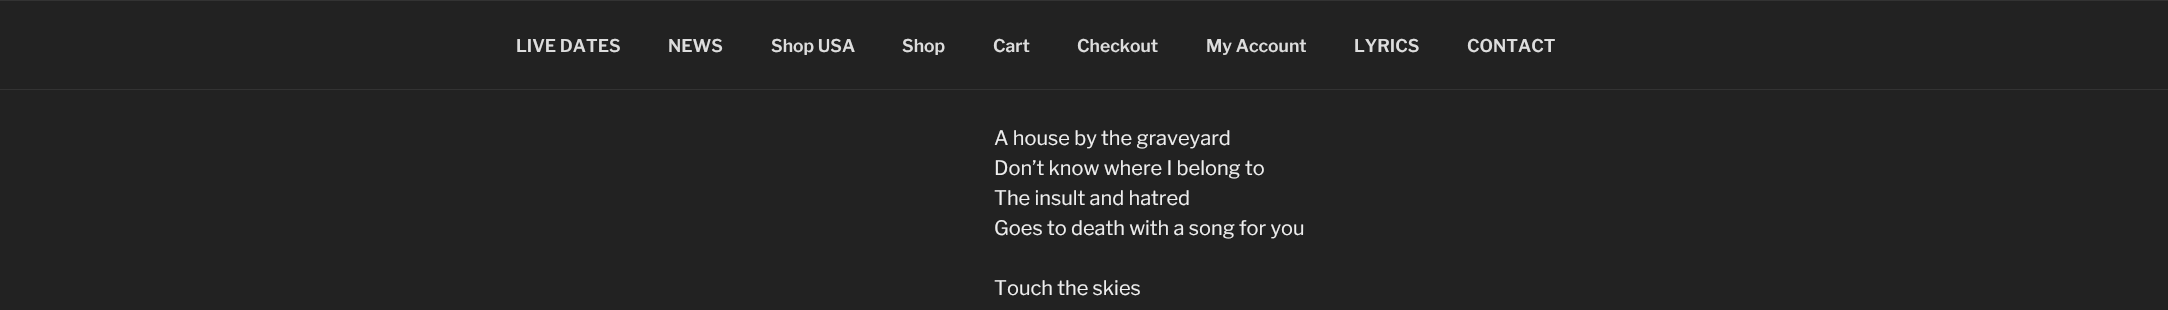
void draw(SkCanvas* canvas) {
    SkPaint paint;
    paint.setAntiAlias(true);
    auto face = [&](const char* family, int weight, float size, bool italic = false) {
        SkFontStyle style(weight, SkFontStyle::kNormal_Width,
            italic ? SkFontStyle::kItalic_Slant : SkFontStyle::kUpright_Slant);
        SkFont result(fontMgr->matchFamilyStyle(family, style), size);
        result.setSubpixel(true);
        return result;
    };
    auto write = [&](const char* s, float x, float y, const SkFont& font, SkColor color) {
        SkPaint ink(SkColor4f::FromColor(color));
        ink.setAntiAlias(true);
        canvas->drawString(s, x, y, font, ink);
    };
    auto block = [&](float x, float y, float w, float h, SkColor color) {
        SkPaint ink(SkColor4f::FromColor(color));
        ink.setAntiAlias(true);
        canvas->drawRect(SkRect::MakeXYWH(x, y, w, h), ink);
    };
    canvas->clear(SkColorSetRGB(34, 34, 34));
    block(0, 0, 2168, 1, SkColorSetRGB(51, 51, 51));
    block(0, 89, 2168, 1, SkColorSetRGB(51, 51, 51));
    auto kFont1 = face("Libre Franklin", 600, 17.5f);
    write("LIVE DATES", 516, 52, kFont1, SkColorSetRGB(221, 221, 221));
    write("NEWS", 668, 52, kFont1, SkColorSetRGB(221, 221, 221));
    write("Shop USA", 771, 52, kFont1, SkColorSetRGB(221, 221, 221));
    write("Shop", 902, 52, kFont1, SkColorSetRGB(221, 221, 221));
    write("Cart", 993, 52, kFont1, SkColorSetRGB(221, 221, 221));
    write("Checkout", 1077, 52, kFont1, SkColorSetRGB(221, 221, 221));
    write("My Account", 1206, 52, kFont1, SkColorSetRGB(221, 221, 221));
    write("LYRICS", 1354, 52, kFont1, SkColorSetRGB(221, 221, 221));
    write("CONTACT", 1467, 52, kFont1, SkColorSetRGB(221, 221, 221));
    auto kFont2 = face("Libre Franklin", 400, 20);
    write("A house by the graveyard", 994, 145, kFont2, SkColorSetRGB(238, 238, 238));
    write("Don’t know where I belong to", 994, 175, kFont2, SkColorSetRGB(238, 238, 238));
    write("The insult and hatred", 994, 205, kFont2, SkColorSetRGB(238, 238, 238));
    write("Goes to death with a song for you", 994, 235, kFont2, SkColorSetRGB(238, 238, 238));
    write("Touch the skies", 994, 295, kFont2, SkColorSetRGB(238, 238, 238));
}
